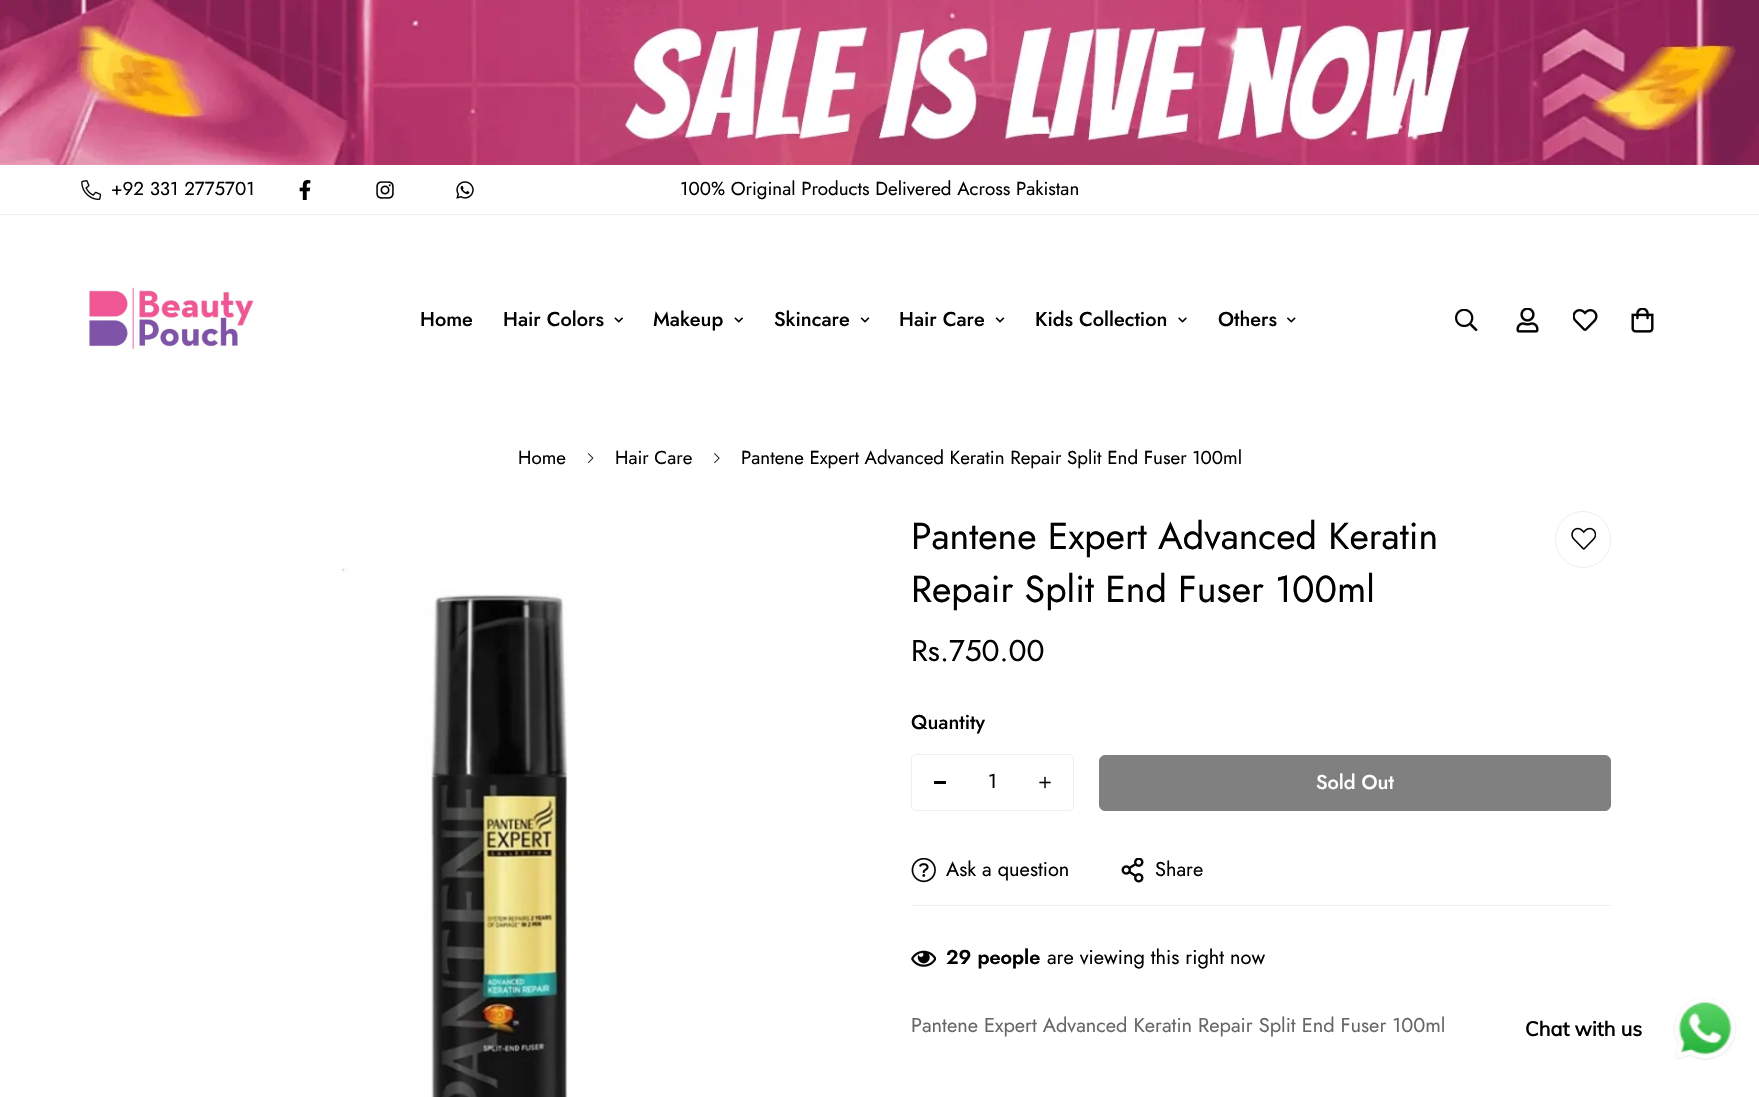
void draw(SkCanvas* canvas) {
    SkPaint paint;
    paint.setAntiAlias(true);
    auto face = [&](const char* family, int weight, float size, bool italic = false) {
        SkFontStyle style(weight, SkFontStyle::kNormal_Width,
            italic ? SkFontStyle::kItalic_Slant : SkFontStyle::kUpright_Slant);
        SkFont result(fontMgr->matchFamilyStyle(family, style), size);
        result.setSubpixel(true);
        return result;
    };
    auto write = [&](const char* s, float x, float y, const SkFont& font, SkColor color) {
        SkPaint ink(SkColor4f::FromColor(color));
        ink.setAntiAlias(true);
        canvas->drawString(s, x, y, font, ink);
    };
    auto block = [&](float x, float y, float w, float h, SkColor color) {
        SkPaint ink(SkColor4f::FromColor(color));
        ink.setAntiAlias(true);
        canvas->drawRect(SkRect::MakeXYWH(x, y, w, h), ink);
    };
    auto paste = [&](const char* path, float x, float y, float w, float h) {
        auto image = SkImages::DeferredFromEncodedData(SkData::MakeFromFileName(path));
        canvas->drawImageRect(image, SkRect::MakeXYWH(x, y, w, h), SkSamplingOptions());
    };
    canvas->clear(SK_ColorWHITE);
    paste("pic1.png", 0, 0, 1759, 165);
    block(0, 214, 1759, 1, SkColorSetRGB(238, 238, 238));
    paste("pic2.png", 81, 180, 20, 20);
    auto kFont1 = face("Jost", 400, 18.75f);
    write("+92 331 2775701", 111, 195, kFont1, SK_ColorBLACK);
    paste("pic3.png", 299, 180, 12, 20);
    paste("pic4.png", 376, 181, 18, 18);
    paste("pic5.png", 456, 181, 18, 18);
    write("100% Original Products Delivered Across Pakistan", 680, 195, kFont1, SK_ColorBLACK);
    paste("pic6.png", 89, 287, 166, 63);
    auto kFont2 = face("Jost", 500, 20);
    write("Home", 420, 326, kFont2, SK_ColorBLACK);
    write("Hair Colors", 503, 326, kFont2, SK_ColorBLACK);
    paste("pic7.png", 614, 317, 9, 6);
    write("Makeup", 653, 326, kFont2, SK_ColorBLACK);
    paste("pic7.png", 734, 317, 9, 6);
    write("Skincare", 774, 326, kFont2, SK_ColorBLACK);
    paste("pic8.png", 860, 317, 10, 6);
    write("Hair Care", 899, 326, kFont2, SK_ColorBLACK);
    paste("pic8.png", 995, 317, 10, 6);
    write("Kids Collection", 1035, 326, kFont2, SK_ColorBLACK);
    paste("pic9.png", 1178, 317, 9, 6);
    write("Others", 1218, 326, kFont2, SK_ColorBLACK);
    paste("pic10.png", 1287, 317, 9, 6);
    paste("pic11.png", 1455, 309, 23, 22);
    paste("pic12.png", 1516, 308, 23, 25);
    paste("pic13.png", 1573, 309, 25, 22);
    paste("pic14.png", 1631, 308, 23, 25);
    write("Home", 518, 464, kFont1, SK_ColorBLACK);
    paste("pic15.png", 587, 453, 7, 10);
    write("Hair Care", 615, 464, kFont1, SK_ColorBLACK);
    paste("pic16.png", 714, 453, 6, 10);
    write("Pantene Expert Advanced Keratin Repair Split End Fuser 100ml", 741, 464, kFont1, SK_ColorBLACK);
    paste("pic17.png", 342, 568, 227, 529);
    auto kFont3 = face("Jost", 400, 37.5f);
    write("Pantene Expert Advanced Keratin", 911, 549, kFont3, SK_ColorBLACK);
    write("Repair Split End Fuser 100ml", 911, 602, kFont3, SK_ColorBLACK);
    paint.setStyle(SkPaint::kStroke_Style);
    paint.setStrokeWidth(1);
    paint.setColor(SkColorSetRGB(238, 238, 238));
    canvas->drawRoundRect(SkRect::MakeXYWH(1555.5f, 511.5f, 55, 56), 27.5f, 27.5f, paint);
    paste("pic18.png", 1571, 527, 25, 23);
    auto kFont4 = face("Jost", 400, 30);
    write("Rs.750.00", 911, 661, kFont4, SK_ColorBLACK);
    write("Quantity", 911, 729, kFont2, SK_ColorBLACK);
    canvas->drawRoundRect(SkRect::MakeXYWH(911.5f, 754.5f, 162, 56), 4.5f, 4.5f, paint);
    block(934, 781, 12, 3, SK_ColorBLACK);
    auto kFont5 = face("Jost", 400, 20);
    write("1", 988, 788, kFont5, SK_ColorBLACK);
    paste("pic19.png", 1039, 776, 12, 13);
    paint.setStyle(SkPaint::kFill_Style);
    paint.setColor(SkColorSetRGB(128, 128, 128));
    canvas->drawRoundRect(SkRect::MakeXYWH(1099.5f, 755.5f, 511, 55), 5.5f, 5.5f, paint);
    paint.setStyle(SkPaint::kStroke_Style);
    canvas->drawRoundRect(SkRect::MakeXYWH(1099.5f, 755.5f, 511, 55), 5.5f, 5.5f, paint);
    write("Sold Out", 1316, 789, kFont2, SK_ColorWHITE);
    block(911, 905, 700, 1, SkColorSetRGB(238, 238, 238));
    paste("pic20.png", 911, 858, 25, 25);
    write("Ask a question", 946, 876, kFont5, SK_ColorBLACK);
    paste("pic21.png", 1121, 858, 23, 25);
    write("Share", 1155, 876, kFont5, SK_ColorBLACK);
    paste("pic22.png", 911, 950, 25, 17);
    auto kFont6 = face("Jost", 600, 20);
    write("29 people", 946, 964, kFont6, SK_ColorBLACK);
    write("are viewing this right now", 1047, 964, kFont5, SK_ColorBLACK);
    write("Pantene Expert Advanced Keratin Repair Split End Fuser 100ml", 911, 1032, kFont5, SkColorSetRGB(102, 102, 102));
    paste("pic23.png", 1673, 997, 64, 63);
    auto kFont7 = face("Muli", 700, 20);
    write("Chat with us", 1525, 1036, kFont7, SK_ColorBLACK);
}
